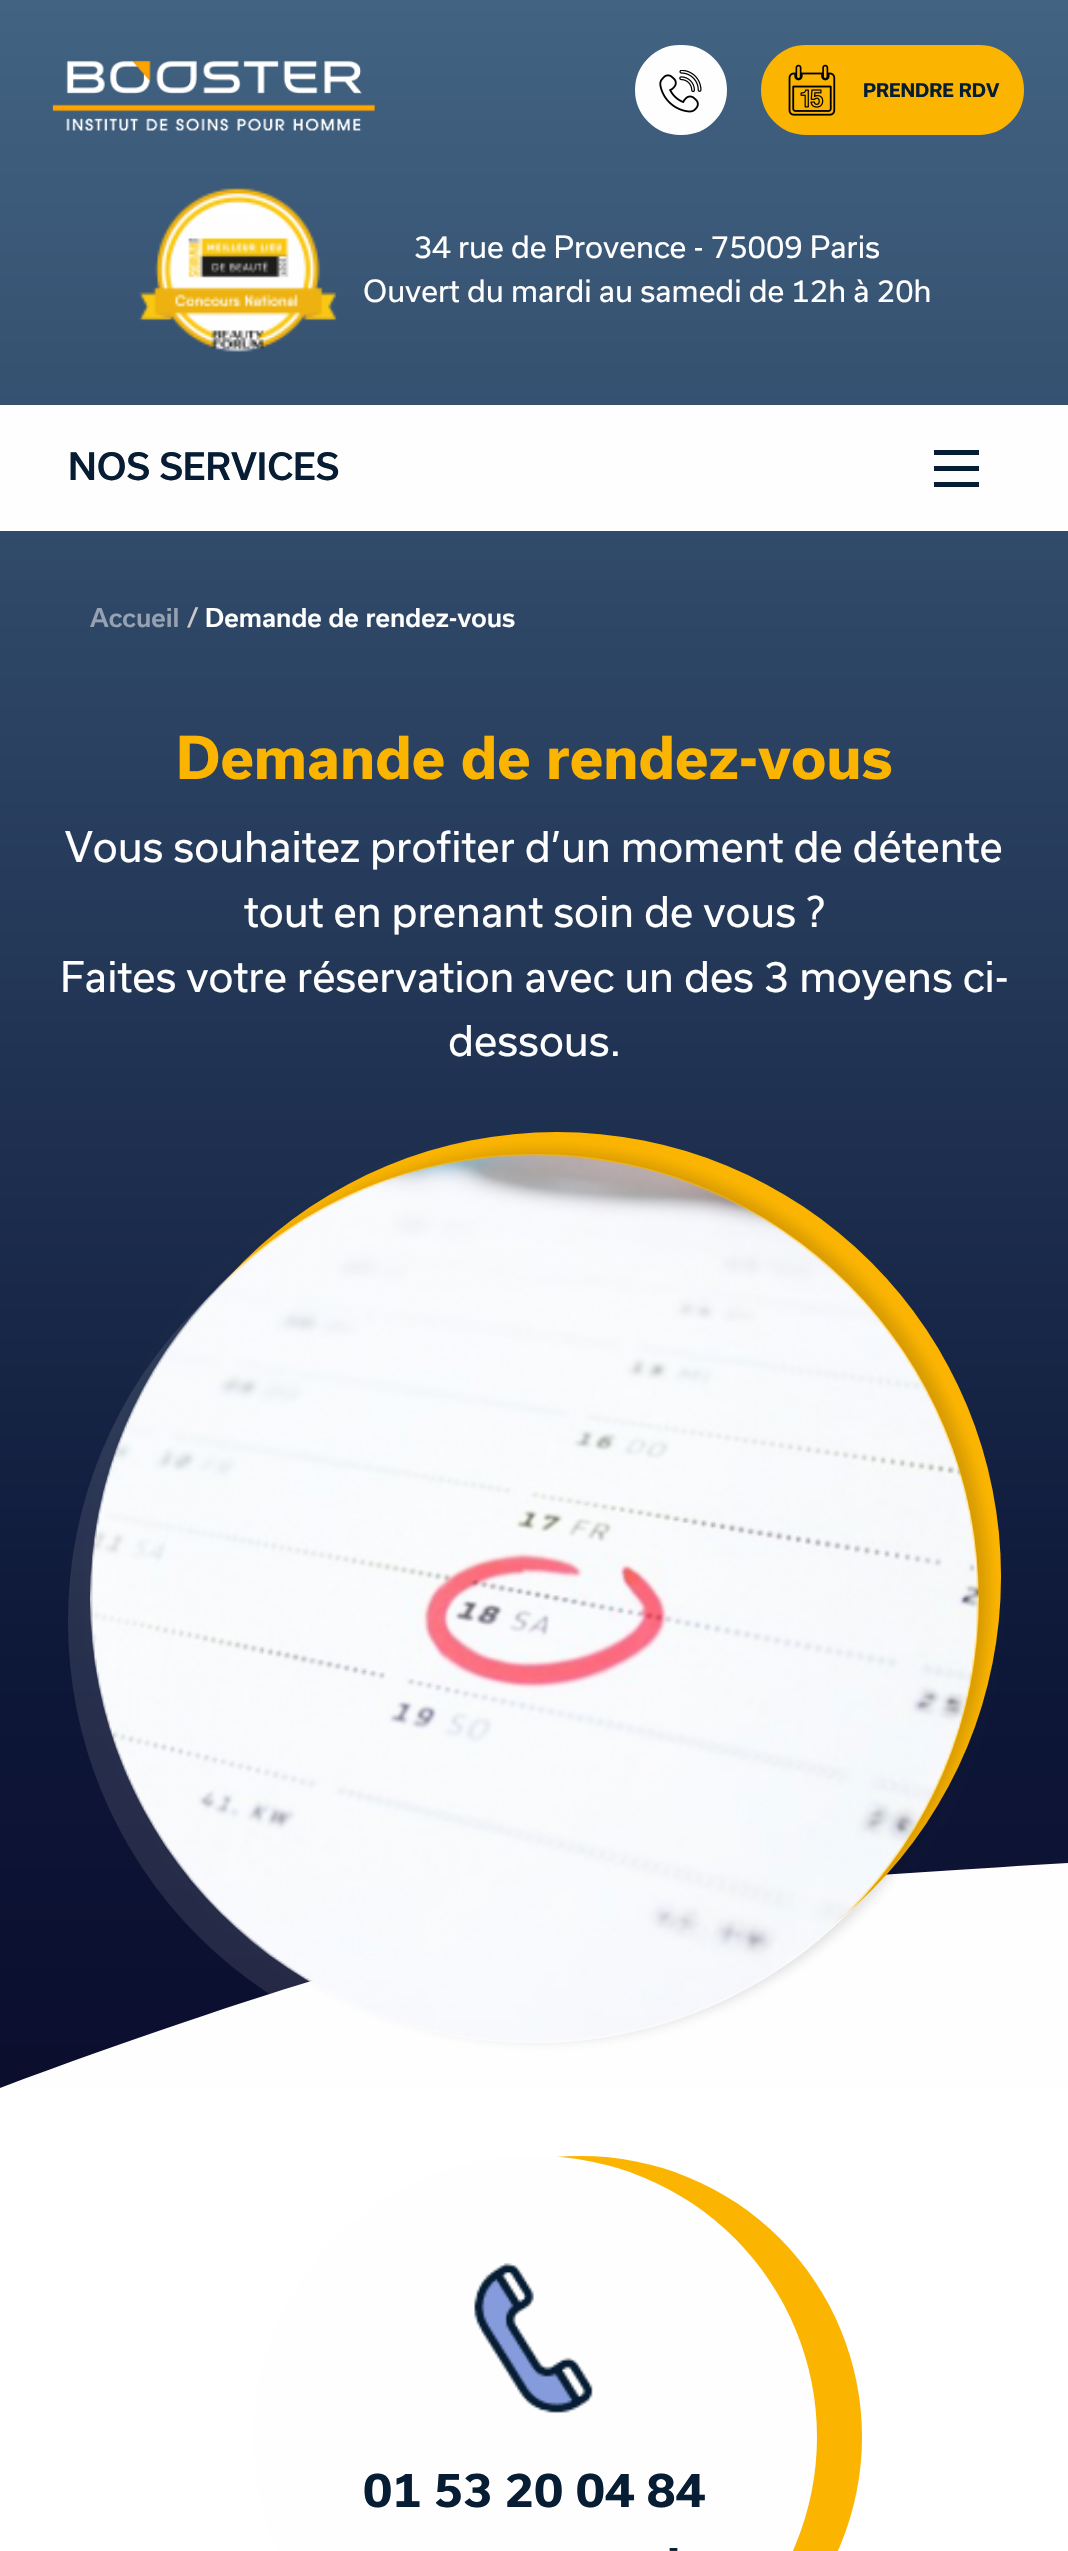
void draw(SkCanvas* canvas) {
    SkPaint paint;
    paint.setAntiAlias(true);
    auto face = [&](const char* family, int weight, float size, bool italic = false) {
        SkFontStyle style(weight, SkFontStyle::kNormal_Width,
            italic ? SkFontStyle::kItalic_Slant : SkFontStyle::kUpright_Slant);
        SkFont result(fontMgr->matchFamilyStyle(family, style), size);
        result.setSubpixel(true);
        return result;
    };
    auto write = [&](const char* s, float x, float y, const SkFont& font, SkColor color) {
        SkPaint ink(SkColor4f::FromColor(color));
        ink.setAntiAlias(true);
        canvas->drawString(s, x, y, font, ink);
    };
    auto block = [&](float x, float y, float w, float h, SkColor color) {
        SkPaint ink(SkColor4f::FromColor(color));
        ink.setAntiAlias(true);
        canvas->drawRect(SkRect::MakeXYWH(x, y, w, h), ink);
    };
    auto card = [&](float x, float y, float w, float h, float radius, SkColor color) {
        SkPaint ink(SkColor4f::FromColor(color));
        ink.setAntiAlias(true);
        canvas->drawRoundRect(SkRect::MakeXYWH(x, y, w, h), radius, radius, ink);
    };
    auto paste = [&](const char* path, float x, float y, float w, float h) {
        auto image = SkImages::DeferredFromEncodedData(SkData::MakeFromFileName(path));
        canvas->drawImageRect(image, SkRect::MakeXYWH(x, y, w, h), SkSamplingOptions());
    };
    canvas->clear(SK_ColorWHITE);
    {
        const SkColor colors[] = {SkColorSetRGB(66, 99, 130), SkColorSetRGB(13, 23, 56), SkColorSetRGB(12, 14, 46), SkColorSetRGB(12, 14, 46)};
        const float stops[] = {0, 0.8f, 0.99f, 1};
        const SkPoint ends[] = {{534, 0}, {534, 2088}};
        paint.setShader(SkGradientShader::MakeLinear(ends, colors, stops, 4, SkTileMode::kClamp));
        paint.setAlpha(255);
    }
    canvas->drawRect(SkRect::MakeXYWH(0, 0, 1068, 2088), paint);
    paste("pic1.png", 52, 60, 323, 71);
    paint.setShader(nullptr);
    paint.setColor(SkColorSetRGB(254, 254, 254));
    canvas->drawRoundRect(SkRect::MakeXYWH(636, 46, 90, 88), 44, 44, paint);
    paint.setStyle(SkPaint::kStroke_Style);
    paint.setStrokeWidth(2);
    canvas->drawRoundRect(SkRect::MakeXYWH(636, 46, 90, 88), 44, 44, paint);
    paste("pic2.png", 659, 70, 43, 43);
    paint.setStyle(SkPaint::kFill_Style);
    paint.setColor(SkColorSetRGB(251, 180, 0));
    canvas->drawRoundRect(SkRect::MakeXYWH(762, 46, 261, 88), 44, 44, paint);
    paint.setStyle(SkPaint::kStroke_Style);
    canvas->drawRoundRect(SkRect::MakeXYWH(762, 46, 261, 88), 44, 44, paint);
    paste("pic3.png", 788, 64, 48, 52);
    auto kFont1 = face("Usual", 700, 18);
    write("PRENDRE RDV", 863, 97, kFont1, SkColorSetRGB(7, 29, 52));
    paste("pic4.png", 139, 188, 199, 164);
    auto kFont2 = face("Usual", 400, 29.25f);
    write("34 rue de Provence - 75009 Paris", 414, 258, kFont2, SkColorSetRGB(254, 254, 254));
    write("Ouvert du mardi au samedi de 12h à 20h", 363, 302, kFont2, SkColorSetRGB(254, 254, 254));
    block(0, 405, 1068, 126, SkColorSetRGB(254, 254, 254));
    auto kFont3 = face("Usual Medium", 500, 36);
    write("NOS SERVICES", 68, 480, kFont3, SkColorSetRGB(7, 29, 52));
    block(934, 450, 45, 5, SkColorSetRGB(7, 29, 52));
    block(934, 466, 45, 5, SkColorSetRGB(7, 29, 52));
    block(934, 482, 45, 5, SkColorSetRGB(7, 29, 52));
    auto kFont4 = face("Usual Medium", 500, 24.75f);
    write("Accueil", 90, 627, kFont4, SkColorSetRGB(150, 162, 178));
    write("/", 187, 627, kFont4, SkColorSetRGB(202, 202, 202));
    write("Demande de rendez-vous", 205, 627, kFont4, SkColorSetRGB(254, 254, 254));
    auto kFont5 = face("Usual", 700, 56.25f);
    write("Demande de rendez-vous", 176, 779, kFont5, SkColorSetRGB(251, 180, 0));
    auto kFont6 = face("Usual", 400, 40.5f);
    write("Vous souhaitez profiter d’un moment de détente", 65, 862, kFont6, SkColorSetRGB(254, 254, 254));
    write("tout en prenant soin de vous ?", 244, 927, kFont6, SkColorSetRGB(254, 254, 254));
    write("Faites votre réservation avec un des 3 moyens ci-", 60, 992, kFont6, SkColorSetRGB(254, 254, 254));
    write("dessous.", 448, 1056, kFont6, SkColorSetRGB(254, 254, 254));
    paint.setStyle(SkPaint::kFill_Style);
    paint.setColor(SkColorSetRGB(254, 254, 254));
    canvas->drawPath(SkPathBuilder().moveTo(0, 2088).cubicTo(534, 1890, 695, 1886, 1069, 1863).lineTo(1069, 2088).detach(), paint);
    card(68, 1177, 888, 889, 444, SkColorSetARGB(26, 254, 254, 254));
    card(113, 1132, 888, 889, 444, SkColorSetRGB(251, 180, 0));
    canvas->save();
    canvas->clipPath(SkPathBuilder(SkPathFillType::kEvenOdd).moveTo(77, 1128).lineTo(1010, 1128).lineTo(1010, 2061).lineTo(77, 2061).close().moveTo(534.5f, 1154).cubicTo(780, 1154, 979, 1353, 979, 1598.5f).cubicTo(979, 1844, 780, 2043, 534.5f, 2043).cubicTo(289, 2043, 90, 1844, 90, 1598.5f).cubicTo(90, 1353, 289, 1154, 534.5f, 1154).close().detach(), true);
    paint.setColor(SkColorSetARGB(41, 10, 10, 10));
    paint.setMaskFilter(SkMaskFilter::MakeBlur(kNormal_SkBlurStyle, 7));
    canvas->drawRoundRect(SkRect::MakeXYWH(99, 1150, 889, 889), 444.5f, 444.5f, paint);
    paint.setMaskFilter(nullptr);
    canvas->restore();
    paste("pic5.png", 90, 1154, 889, 889);
    card(299, 2156, 563, 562, 281, SkColorSetRGB(251, 180, 0));
    card(254, 2156, 563, 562, 281, SkColorSetRGB(254, 254, 254));
    paste("pic6.png", 474, 2263, 119, 151);
    auto kFont7 = face("Usual", 700, 45);
    write("01 53 20 04 84", 363, 2507, kFont7, SkColorSetRGB(7, 29, 52));
    auto kFont8 = face("Usual", 400, 32);
    write("-", 668, 2559, kFont8, SkColorSetRGB(7, 29, 52));
}
